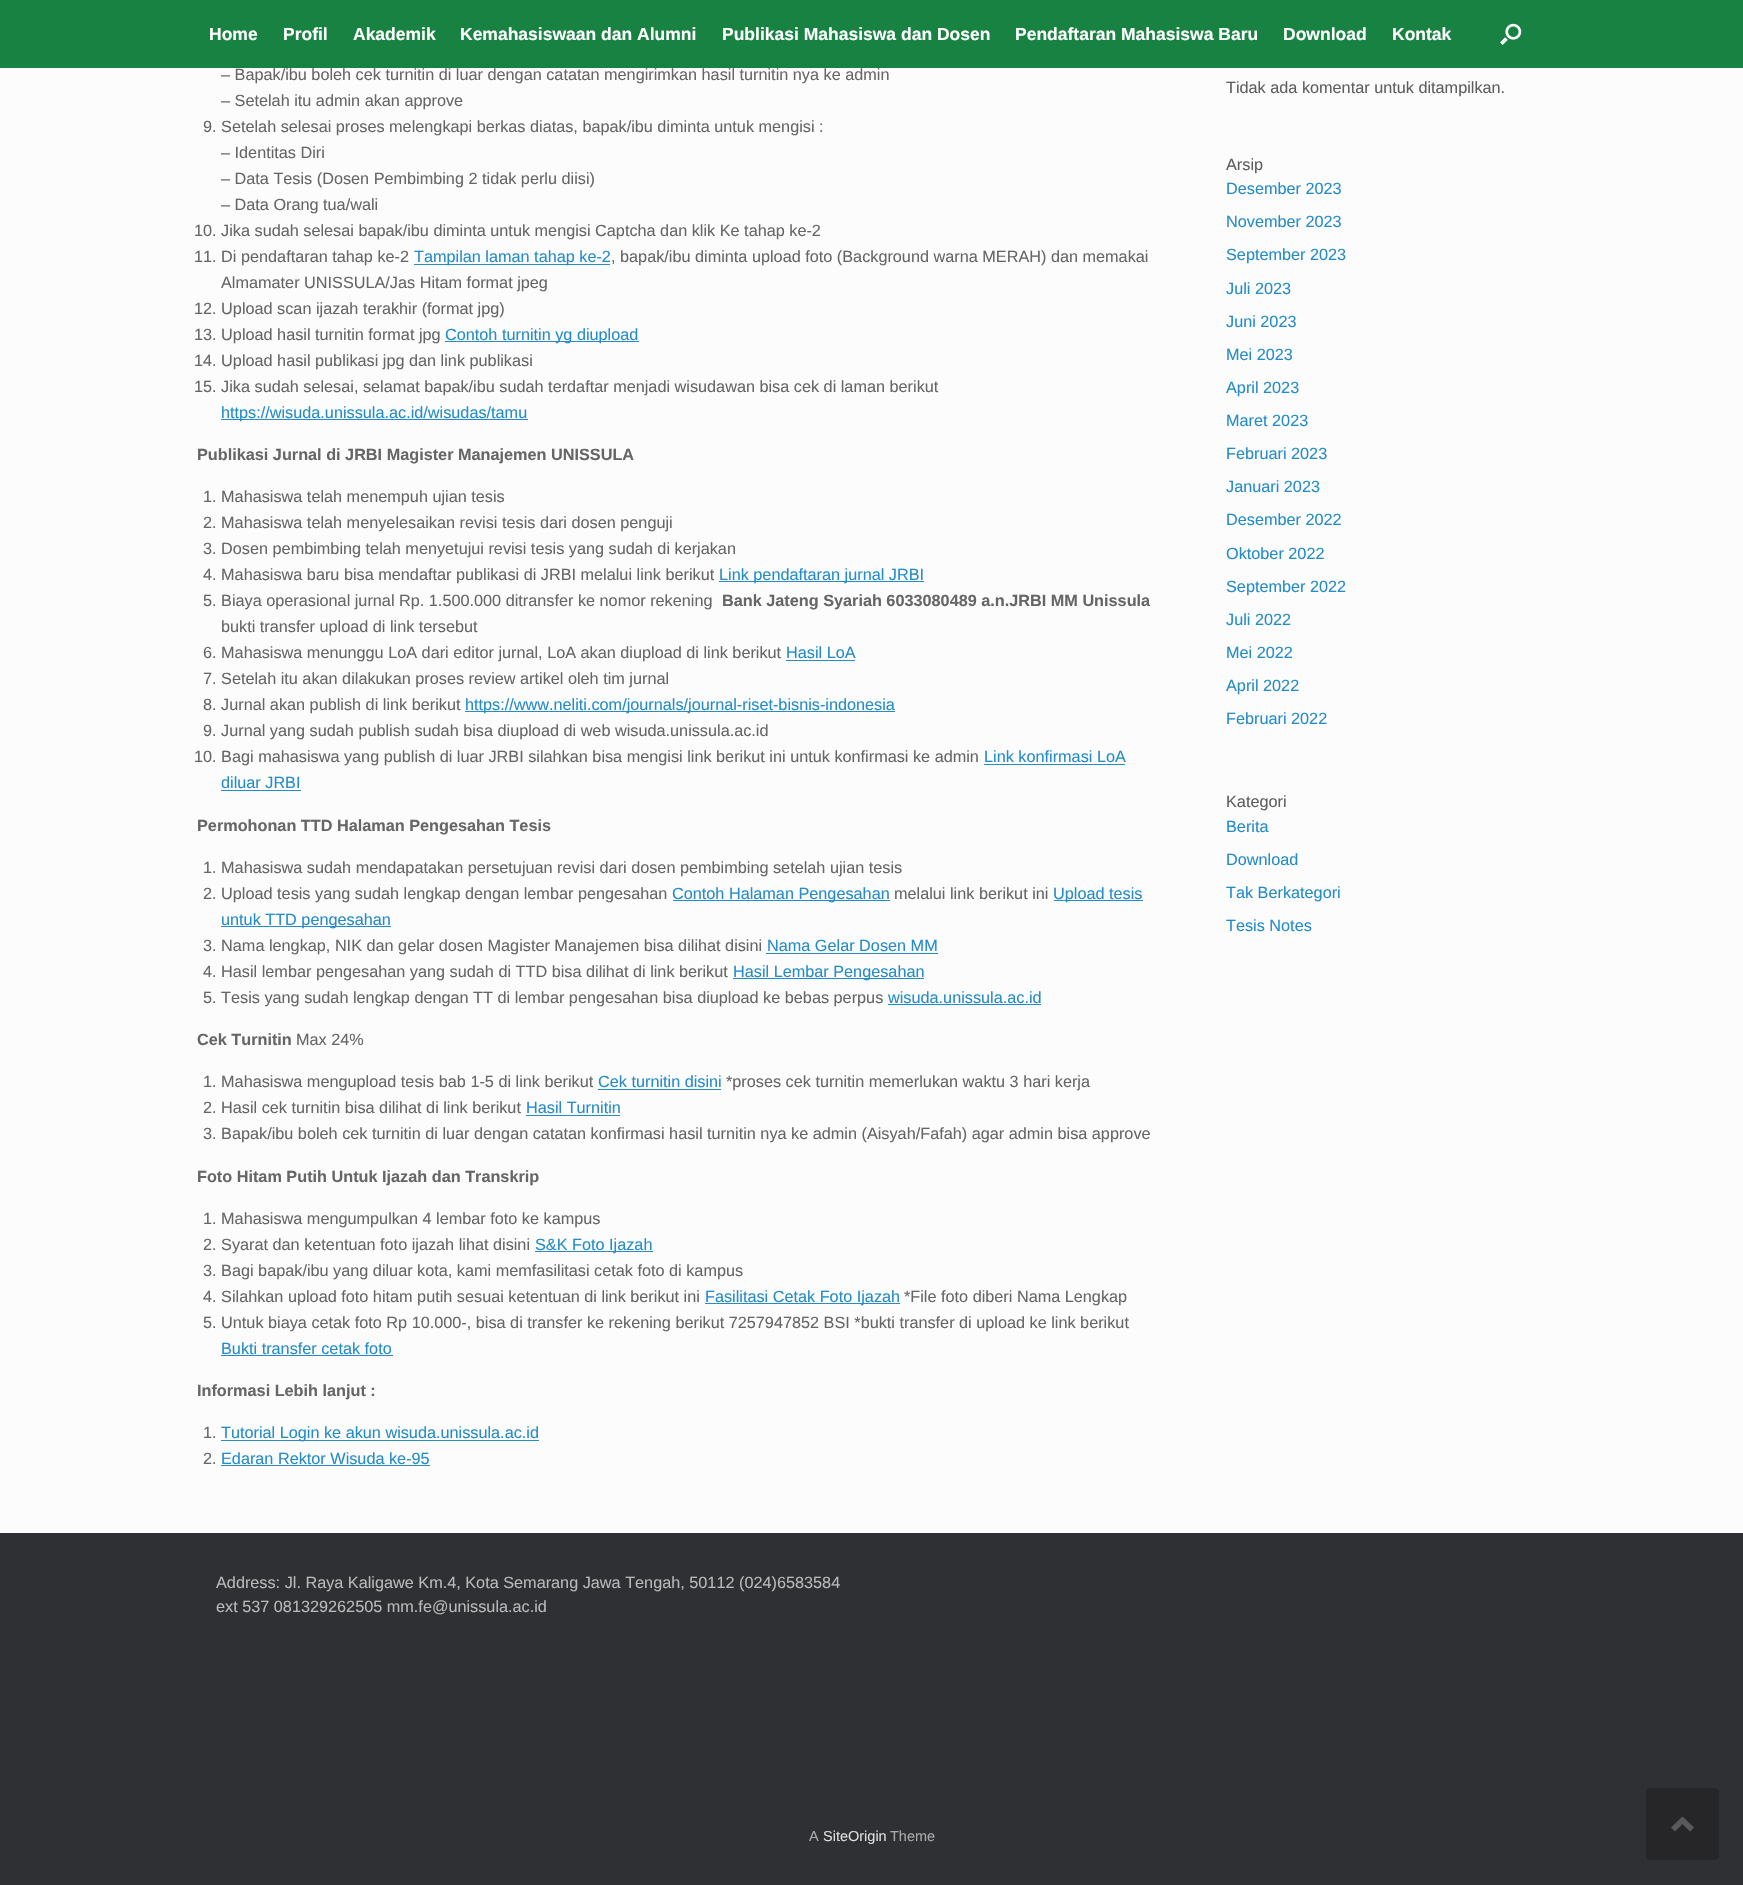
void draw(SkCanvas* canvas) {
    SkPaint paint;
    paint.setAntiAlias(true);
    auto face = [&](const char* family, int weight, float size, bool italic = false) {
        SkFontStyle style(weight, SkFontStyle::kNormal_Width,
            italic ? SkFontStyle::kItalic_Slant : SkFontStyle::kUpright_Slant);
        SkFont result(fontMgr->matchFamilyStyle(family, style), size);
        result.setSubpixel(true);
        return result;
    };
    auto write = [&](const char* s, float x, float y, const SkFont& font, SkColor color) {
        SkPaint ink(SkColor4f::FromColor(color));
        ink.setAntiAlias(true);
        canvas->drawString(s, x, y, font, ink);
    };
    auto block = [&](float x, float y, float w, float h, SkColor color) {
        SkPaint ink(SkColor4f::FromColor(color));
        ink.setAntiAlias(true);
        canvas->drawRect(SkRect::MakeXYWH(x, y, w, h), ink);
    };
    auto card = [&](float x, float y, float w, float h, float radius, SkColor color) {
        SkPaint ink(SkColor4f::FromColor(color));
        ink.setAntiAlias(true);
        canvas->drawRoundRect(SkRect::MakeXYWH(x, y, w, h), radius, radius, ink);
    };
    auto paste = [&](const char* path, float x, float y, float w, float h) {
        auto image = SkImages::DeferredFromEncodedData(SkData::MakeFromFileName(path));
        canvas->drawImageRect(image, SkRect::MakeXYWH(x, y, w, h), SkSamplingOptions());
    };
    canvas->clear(SkColorSetRGB(47, 48, 51));
    block(0, 0, 1743, 68, SkColorSetRGB(24, 130, 66));
    auto kFont1 = face("Liberation Sans", 700, 17.5f);
    write("Home", 209, 40, kFont1, SK_ColorWHITE);
    write("Profil", 283, 40, kFont1, SK_ColorWHITE);
    write("Akademik", 353, 40, kFont1, SK_ColorWHITE);
    write("Kemahasiswaan dan Alumni", 460, 40, kFont1, SK_ColorWHITE);
    write("Publikasi Mahasiswa dan Dosen", 722, 40, kFont1, SK_ColorWHITE);
    write("Pendaftaran Mahasiswa Baru", 1015, 40, kFont1, SK_ColorWHITE);
    write("Download", 1283, 40, kFont1, SK_ColorWHITE);
    write("Kontak", 1392, 40, kFont1, SK_ColorWHITE);
    paste("pic1.png", 1500, 23, 22, 22);
    block(0, 68, 1743, 1465, SkColorSetRGB(252, 252, 252));
    auto kFont2 = face("Liberation Sans", 400, 16.25f);
    write("– Bapak/ibu boleh cek turnitin di luar dengan catatan mengirimkan hasil turnitin nya ke admin", 221, 80, kFont2, SkColorSetRGB(102, 102, 102));
    write("– Setelah itu admin akan approve", 221, 106, kFont2, SkColorSetRGB(102, 102, 102));
    write("9. Setelah selesai proses melengkapi berkas diatas, bapak/ibu diminta untuk mengisi :", 203, 132, kFont2, SkColorSetRGB(102, 102, 102));
    write("– Identitas Diri", 221, 158, kFont2, SkColorSetRGB(102, 102, 102));
    write("– Data Tesis (Dosen Pembimbing 2 tidak perlu diisi)", 221, 184, kFont2, SkColorSetRGB(102, 102, 102));
    write("– Data Orang tua/wali", 221, 210, kFont2, SkColorSetRGB(102, 102, 102));
    write("10. Jika sudah selesai bapak/ibu diminta untuk mengisi Captcha dan klik Ke tahap ke-2", 194, 236, kFont2, SkColorSetRGB(102, 102, 102));
    write("11. Di pendaftaran tahap ke-2", 194, 262, kFont2, SkColorSetRGB(102, 102, 102));
    block(414, 264, 196, 1, SkColorSetRGB(36, 140, 200));
    write("Tampilan laman tahap ke-2", 414, 262, kFont2, SkColorSetRGB(36, 140, 200));
    write(", bapak/ibu diminta upload foto (Background warna MERAH) dan memakai", 611, 262, kFont2, SkColorSetRGB(102, 102, 102));
    write("Almamater UNISSULA/Jas Hitam format jpeg", 221, 288, kFont2, SkColorSetRGB(102, 102, 102));
    write("12. Upload scan ijazah terakhir (format jpg)", 194, 314, kFont2, SkColorSetRGB(102, 102, 102));
    write("13. Upload hasil turnitin format jpg", 194, 340, kFont2, SkColorSetRGB(102, 102, 102));
    block(445, 341, 194, 1, SkColorSetRGB(36, 140, 200));
    write("Contoh turnitin yg diupload", 445, 340, kFont2, SkColorSetRGB(36, 140, 200));
    write("14. Upload hasil publikasi jpg dan link publikasi", 194, 366, kFont2, SkColorSetRGB(102, 102, 102));
    write("15. Jika sudah selesai, selamat bapak/ibu sudah terdaftar menjadi wisudawan bisa cek di laman berikut", 194, 392, kFont2, SkColorSetRGB(102, 102, 102));
    block(221, 419, 307, 1, SkColorSetRGB(36, 140, 200));
    write("https://wisuda.unissula.ac.id/wisudas/tamu", 221, 418, kFont2, SkColorSetRGB(36, 140, 200));
    auto kFont3 = face("Liberation Sans", 700, 16.25f);
    write("Publikasi Jurnal di JRBI Magister Manajemen UNISSULA", 197, 460, kFont3, SkColorSetRGB(102, 102, 102));
    write("1. Mahasiswa telah menempuh ujian tesis", 203, 502, kFont2, SkColorSetRGB(102, 102, 102));
    write("2. Mahasiswa telah menyelesaikan revisi tesis dari dosen penguji", 203, 528, kFont2, SkColorSetRGB(102, 102, 102));
    write("3. Dosen pembimbing telah menyetujui revisi tesis yang sudah di kerjakan", 203, 554, kFont2, SkColorSetRGB(102, 102, 102));
    write("4. Mahasiswa baru bisa mendaftar publikasi di JRBI melalui link berikut", 203, 580, kFont2, SkColorSetRGB(102, 102, 102));
    block(719, 581, 205, 1, SkColorSetRGB(36, 140, 200));
    write("Link pendaftaran jurnal JRBI", 719, 580, kFont2, SkColorSetRGB(36, 140, 200));
    write("5. Biaya operasional jurnal Rp. 1.500.000 ditransfer ke nomor rekening", 203, 606, kFont2, SkColorSetRGB(102, 102, 102));
    write("Bank Jateng Syariah 6033080489 a.n.JRBI MM Unissula", 722, 606, kFont3, SkColorSetRGB(102, 102, 102));
    write("bukti transfer upload di link tersebut", 221, 632, kFont2, SkColorSetRGB(102, 102, 102));
    write("6. Mahasiswa menunggu LoA dari editor jurnal, LoA akan diupload di link berikut", 203, 658, kFont2, SkColorSetRGB(102, 102, 102));
    write("Hasil LoA", 786, 658, kFont2, SkColorSetRGB(36, 140, 200));
    block(786, 660, 69, 1, SkColorSetRGB(36, 140, 200));
    write("7. Setelah itu akan dilakukan proses review artikel oleh tim jurnal", 203, 684, kFont2, SkColorSetRGB(102, 102, 102));
    write("8. Jurnal akan publish di link berikut", 203, 710, kFont2, SkColorSetRGB(102, 102, 102));
    block(465, 711, 430, 1, SkColorSetRGB(36, 140, 200));
    write("https://www.neliti.com/journals/journal-riset-bisnis-indonesia", 465, 710, kFont2, SkColorSetRGB(36, 140, 200));
    write("9. Jurnal yang sudah publish sudah bisa diupload di web wisuda.unissula.ac.id", 203, 736, kFont2, SkColorSetRGB(102, 102, 102));
    write("10. Bagi mahasiswa yang publish di luar JRBI silahkan bisa mengisi link berikut ini untuk konfirmasi ke admin", 194, 762, kFont2, SkColorSetRGB(102, 102, 102));
    write("Link konfirmasi LoA", 984, 762, kFont2, SkColorSetRGB(36, 140, 200));
    block(984, 764, 141, 1, SkColorSetRGB(36, 140, 200));
    write("diluar JRBI", 221, 788, kFont2, SkColorSetRGB(36, 140, 200));
    block(221, 790, 80, 1, SkColorSetRGB(36, 140, 200));
    write("Permohonan TTD Halaman Pengesahan Tesis", 197, 831, kFont3, SkColorSetRGB(102, 102, 102));
    write("1. Mahasiswa sudah mendapatakan persetujuan revisi dari dosen pembimbing setelah ujian tesis", 203, 873, kFont2, SkColorSetRGB(102, 102, 102));
    write("2. Upload tesis yang sudah lengkap dengan lembar pengesahan", 203, 899, kFont2, SkColorSetRGB(102, 102, 102));
    block(673, 900, 217, 1, SkColorSetRGB(36, 140, 200));
    write("Contoh Halaman Pengesahan", 672, 899, kFont2, SkColorSetRGB(36, 140, 200));
    write("melalui link berikut ini", 894, 899, kFont2, SkColorSetRGB(102, 102, 102));
    block(1054, 900, 89, 1, SkColorSetRGB(36, 140, 200));
    write("Upload tesis", 1053, 899, kFont2, SkColorSetRGB(36, 140, 200));
    block(221, 926, 170, 1, SkColorSetRGB(36, 140, 200));
    write("untuk TTD pengesahan", 221, 925, kFont2, SkColorSetRGB(36, 140, 200));
    write("3. Nama lengkap, NIK dan gelar dosen Magister Manajemen bisa dilihat disini", 203, 951, kFont2, SkColorSetRGB(102, 102, 102));
    write("Nama Gelar Dosen MM", 767, 951, kFont2, SkColorSetRGB(36, 140, 200));
    block(766, 953, 172, 1, SkColorSetRGB(36, 140, 200));
    write("4. Hasil lembar pengesahan yang sudah di TTD bisa dilihat di link berikut", 203, 977, kFont2, SkColorSetRGB(102, 102, 102));
    block(733, 978, 191, 1, SkColorSetRGB(36, 140, 200));
    write("Hasil Lembar Pengesahan", 733, 977, kFont2, SkColorSetRGB(36, 140, 200));
    write("5. Tesis yang sudah lengkap dengan TT di lembar pengesahan bisa diupload ke bebas perpus", 203, 1003, kFont2, SkColorSetRGB(102, 102, 102));
    write("wisuda.unissula.ac.id", 888, 1003, kFont2, SkColorSetRGB(36, 140, 200));
    block(888, 1004, 153, 1, SkColorSetRGB(36, 140, 200));
    write("Cek Turnitin", 197, 1045, kFont3, SkColorSetRGB(102, 102, 102));
    write("Max 24%", 296, 1045, kFont2, SkColorSetRGB(102, 102, 102));
    write("1. Mahasiswa mengupload tesis bab 1-5 di link berikut", 203, 1087, kFont2, SkColorSetRGB(102, 102, 102));
    write("Cek turnitin disini", 598, 1087, kFont2, SkColorSetRGB(36, 140, 200));
    block(598, 1089, 123, 1, SkColorSetRGB(36, 140, 200));
    write("*proses cek turnitin memerlukan waktu 3 hari kerja", 726, 1087, kFont2, SkColorSetRGB(102, 102, 102));
    write("2. Hasil cek turnitin bisa dilihat di link berikut", 203, 1113, kFont2, SkColorSetRGB(102, 102, 102));
    write("Hasil Turnitin", 526, 1113, kFont2, SkColorSetRGB(36, 140, 200));
    block(526, 1115, 94, 1, SkColorSetRGB(36, 140, 200));
    write("3. Bapak/ibu boleh cek turnitin di luar dengan catatan konfirmasi hasil turnitin nya ke admin (Aisyah/Fafah) agar admin bisa approve", 203, 1139, kFont2, SkColorSetRGB(102, 102, 102));
    write("Foto Hitam Putih Untuk Ijazah dan Transkrip", 197, 1182, kFont3, SkColorSetRGB(102, 102, 102));
    write("1. Mahasiswa mengumpulkan 4 lembar foto ke kampus", 203, 1224, kFont2, SkColorSetRGB(102, 102, 102));
    write("2. Syarat dan ketentuan foto ijazah lihat disini", 203, 1250, kFont2, SkColorSetRGB(102, 102, 102));
    block(535, 1251, 118, 1, SkColorSetRGB(36, 140, 200));
    write("S&K Foto Ijazah", 535, 1250, kFont2, SkColorSetRGB(36, 140, 200));
    write("3. Bagi bapak/ibu yang diluar kota, kami memfasilitasi cetak foto di kampus", 203, 1276, kFont2, SkColorSetRGB(102, 102, 102));
    write("4. Silahkan upload foto hitam putih sesuai ketentuan di link berikut ini", 203, 1302, kFont2, SkColorSetRGB(102, 102, 102));
    block(705, 1303, 195, 1, SkColorSetRGB(36, 140, 200));
    write("Fasilitasi Cetak Foto Ijazah", 705, 1302, kFont2, SkColorSetRGB(36, 140, 200));
    write("*File foto diberi Nama Lengkap", 904, 1302, kFont2, SkColorSetRGB(102, 102, 102));
    write("5. Untuk biaya cetak foto Rp 10.000-, bisa di transfer ke rekening berikut 7257947852 BSI *bukti transfer di upload ke link berikut", 203, 1328, kFont2, SkColorSetRGB(102, 102, 102));
    write("Bukti transfer cetak foto", 221, 1354, kFont2, SkColorSetRGB(36, 140, 200));
    block(221, 1355, 172, 1, SkColorSetRGB(36, 140, 200));
    write("Informasi Lebih lanjut :", 197, 1396, kFont3, SkColorSetRGB(102, 102, 102));
    write("1.", 203, 1438, kFont2, SkColorSetRGB(102, 102, 102));
    block(221, 1440, 318, 1, SkColorSetRGB(36, 140, 200));
    write("Tutorial Login ke akun wisuda.unissula.ac.id", 221, 1438, kFont2, SkColorSetRGB(36, 140, 200));
    write("2.", 203, 1464, kFont2, SkColorSetRGB(102, 102, 102));
    write("Edaran Rektor Wisuda ke-95", 221, 1464, kFont2, SkColorSetRGB(36, 140, 200));
    block(221, 1465, 209, 1, SkColorSetRGB(36, 140, 200));
    write("Tidak ada komentar untuk ditampilkan.", 1226, 93, kFont2, SkColorSetRGB(94, 94, 94));
    write("Arsip", 1226, 170, kFont2, SkColorSetRGB(94, 94, 94));
    write("Desember 2023", 1226, 194, kFont2, SkColorSetRGB(36, 140, 200));
    write("November 2023", 1226, 227, kFont2, SkColorSetRGB(36, 140, 200));
    write("September 2023", 1226, 260, kFont2, SkColorSetRGB(36, 140, 200));
    write("Juli 2023", 1226, 294, kFont2, SkColorSetRGB(36, 140, 200));
    write("Juni 2023", 1226, 327, kFont2, SkColorSetRGB(36, 140, 200));
    write("Mei 2023", 1226, 360, kFont2, SkColorSetRGB(36, 140, 200));
    write("April 2023", 1226, 393, kFont2, SkColorSetRGB(36, 140, 200));
    write("Maret 2023", 1226, 426, kFont2, SkColorSetRGB(36, 140, 200));
    write("Februari 2023", 1226, 459, kFont2, SkColorSetRGB(36, 140, 200));
    write("Januari 2023", 1226, 492, kFont2, SkColorSetRGB(36, 140, 200));
    write("Desember 2022", 1226, 525, kFont2, SkColorSetRGB(36, 140, 200));
    write("Oktober 2022", 1226, 559, kFont2, SkColorSetRGB(36, 140, 200));
    write("September 2022", 1226, 592, kFont2, SkColorSetRGB(36, 140, 200));
    write("Juli 2022", 1226, 625, kFont2, SkColorSetRGB(36, 140, 200));
    write("Mei 2022", 1226, 658, kFont2, SkColorSetRGB(36, 140, 200));
    write("April 2022", 1226, 691, kFont2, SkColorSetRGB(36, 140, 200));
    write("Februari 2022", 1226, 724, kFont2, SkColorSetRGB(36, 140, 200));
    write("Kategori", 1226, 807, kFont2, SkColorSetRGB(94, 94, 94));
    write("Berita", 1226, 832, kFont2, SkColorSetRGB(36, 140, 200));
    write("Download", 1226, 865, kFont2, SkColorSetRGB(36, 140, 200));
    write("Tak Berkategori", 1226, 898, kFont2, SkColorSetRGB(36, 140, 200));
    write("Tesis Notes", 1226, 931, kFont2, SkColorSetRGB(36, 140, 200));
    write("Address: Jl. Raya Kaligawe Km.4, Kota Semarang Jawa Tengah, 50112 (024)6583584", 216, 1588, kFont2, SkColorSetRGB(185, 185, 185));
    write("ext 537 081329262505 mm.fe@unissula.ac.id", 216, 1612, kFont2, SkColorSetRGB(185, 185, 185));
    auto kFont4 = face("Liberation Sans", 400, 14.5f);
    write("A", 809, 1841, kFont4, SkColorSetRGB(170, 170, 170));
    write("SiteOrigin", 823, 1841, kFont4, SkColorSetRGB(221, 221, 221));
    write("Theme", 890, 1841, kFont4, SkColorSetRGB(170, 170, 170));
    card(1646, 1788, 73, 72, 4, SkColorSetRGB(38, 38, 41));
    paint.setColor(SkColorSetRGB(89, 89, 92));
    canvas->drawPath(SkPathBuilder().moveTo(1694, 1827.5f).lineTo(1682.5f, 1816.5f).lineTo(1671, 1827.5f).lineTo(1675, 1831.5f).lineTo(1682.5f, 1824).lineTo(1690, 1831.5f).close().detach(), paint);
}
